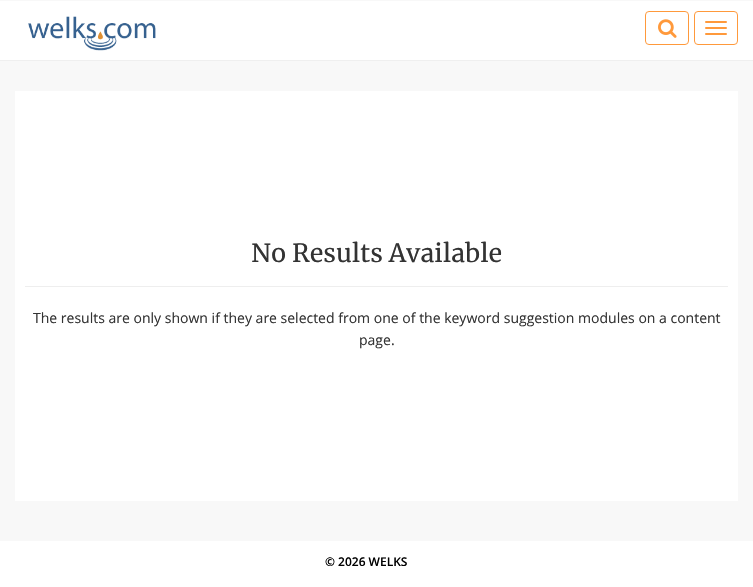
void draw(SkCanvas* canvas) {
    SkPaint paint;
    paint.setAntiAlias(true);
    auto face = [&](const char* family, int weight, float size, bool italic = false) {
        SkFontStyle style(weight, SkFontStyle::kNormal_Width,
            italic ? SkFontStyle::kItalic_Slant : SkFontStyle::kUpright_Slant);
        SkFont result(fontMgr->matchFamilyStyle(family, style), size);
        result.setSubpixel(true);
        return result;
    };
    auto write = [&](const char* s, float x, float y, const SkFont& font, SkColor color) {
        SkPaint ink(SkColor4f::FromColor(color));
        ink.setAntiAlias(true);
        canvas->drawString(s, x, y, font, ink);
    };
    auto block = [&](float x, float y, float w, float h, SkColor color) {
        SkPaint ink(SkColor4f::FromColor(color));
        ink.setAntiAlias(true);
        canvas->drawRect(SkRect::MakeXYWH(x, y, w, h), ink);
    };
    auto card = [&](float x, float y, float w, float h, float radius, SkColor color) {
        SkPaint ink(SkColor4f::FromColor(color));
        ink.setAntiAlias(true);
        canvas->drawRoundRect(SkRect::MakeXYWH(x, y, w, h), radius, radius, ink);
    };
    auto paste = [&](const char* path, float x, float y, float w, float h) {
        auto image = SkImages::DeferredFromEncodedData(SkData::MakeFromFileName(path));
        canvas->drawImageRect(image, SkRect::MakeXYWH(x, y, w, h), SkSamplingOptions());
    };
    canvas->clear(SkColorSetRGB(248, 248, 248));
    block(0, 1, 753, 59, SK_ColorWHITE);
    block(0, 60, 753, 1, SkColorSetRGB(239, 239, 239));
    paste("pic1.png", 28, 16, 128, 35);
    paint.setStyle(SkPaint::kStroke_Style);
    paint.setStrokeWidth(1);
    paint.setColor(SkColorSetRGB(255, 153, 59));
    canvas->drawRoundRect(SkRect::MakeXYWH(645.5f, 11.5f, 43, 33), 3.5f, 3.5f, paint);
    paste("pic2.png", 658, 19, 19, 19);
    canvas->drawRoundRect(SkRect::MakeXYWH(694.5f, 11.5f, 43, 33), 3.5f, 3.5f, paint);
    card(705, 21, 22, 2, 1, SkColorSetRGB(255, 153, 59));
    card(705, 27, 22, 2, 1, SkColorSetRGB(255, 153, 59));
    card(705, 33, 22, 2, 1, SkColorSetRGB(255, 153, 59));
    block(15, 91, 723, 410, SK_ColorWHITE);
    auto kFont1 = face("Merriweather", 400, 25);
    write("No Results Available", 251, 262, kFont1, SkColorSetRGB(51, 51, 51));
    block(25, 286, 703, 1, SkColorSetRGB(238, 238, 238));
    auto kFont2 = face("Open Sans", 400, 14);
    write("The results are only shown if they are selected from one of the keyword suggestion modules on a content", 33, 323, kFont2, SkColorSetRGB(51, 51, 51));
    write("page.", 359, 345, kFont2, SkColorSetRGB(51, 51, 51));
    block(0, 541, 753, 46, SK_ColorWHITE);
    auto kFont3 = face("Open Sans", 600, 12);
    write("© 2026 WELKS", 325, 566, kFont3, SK_ColorBLACK);
}
